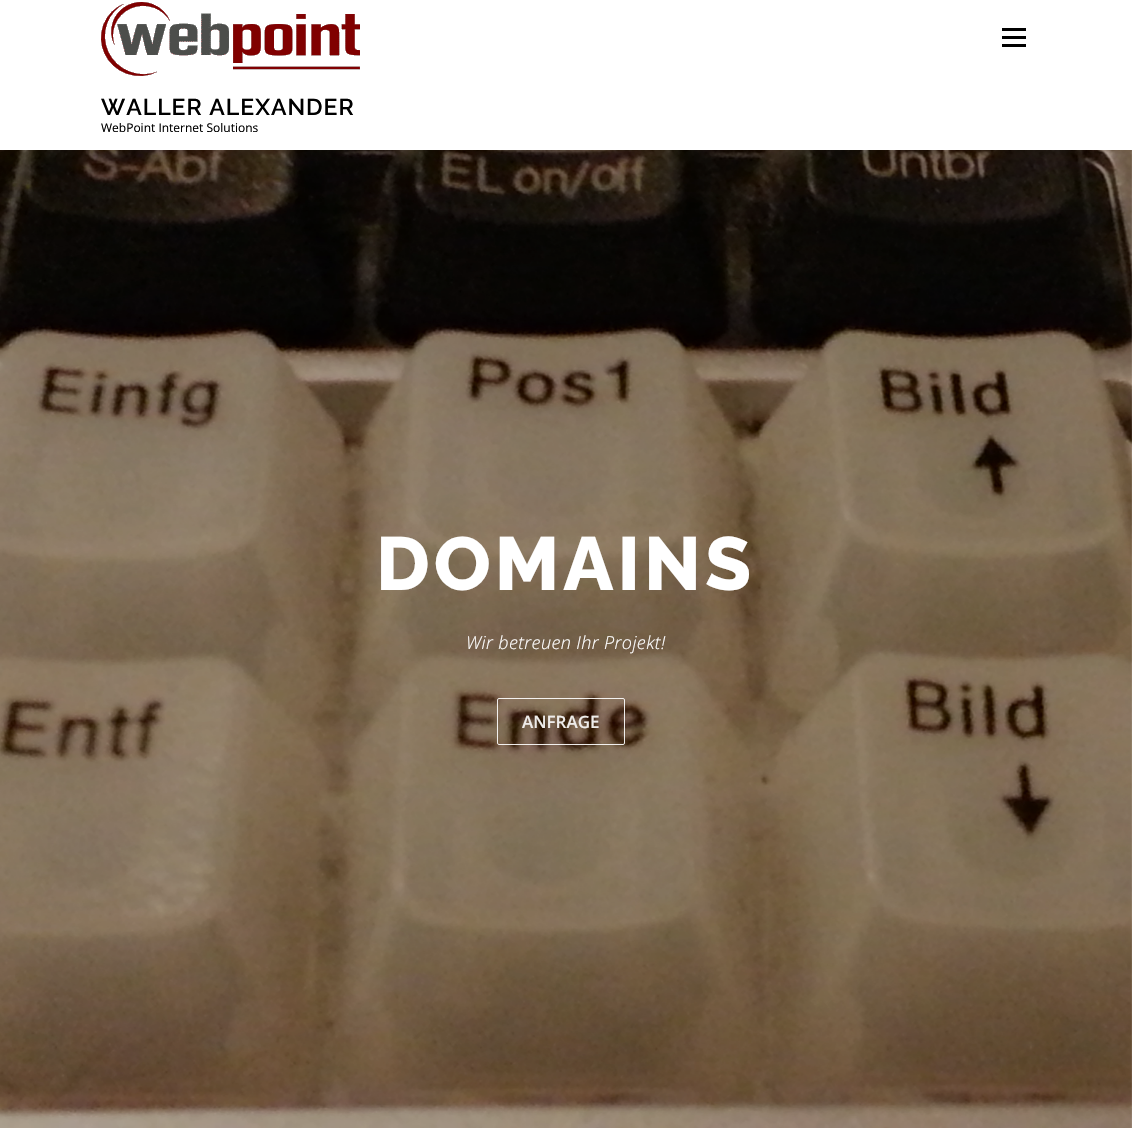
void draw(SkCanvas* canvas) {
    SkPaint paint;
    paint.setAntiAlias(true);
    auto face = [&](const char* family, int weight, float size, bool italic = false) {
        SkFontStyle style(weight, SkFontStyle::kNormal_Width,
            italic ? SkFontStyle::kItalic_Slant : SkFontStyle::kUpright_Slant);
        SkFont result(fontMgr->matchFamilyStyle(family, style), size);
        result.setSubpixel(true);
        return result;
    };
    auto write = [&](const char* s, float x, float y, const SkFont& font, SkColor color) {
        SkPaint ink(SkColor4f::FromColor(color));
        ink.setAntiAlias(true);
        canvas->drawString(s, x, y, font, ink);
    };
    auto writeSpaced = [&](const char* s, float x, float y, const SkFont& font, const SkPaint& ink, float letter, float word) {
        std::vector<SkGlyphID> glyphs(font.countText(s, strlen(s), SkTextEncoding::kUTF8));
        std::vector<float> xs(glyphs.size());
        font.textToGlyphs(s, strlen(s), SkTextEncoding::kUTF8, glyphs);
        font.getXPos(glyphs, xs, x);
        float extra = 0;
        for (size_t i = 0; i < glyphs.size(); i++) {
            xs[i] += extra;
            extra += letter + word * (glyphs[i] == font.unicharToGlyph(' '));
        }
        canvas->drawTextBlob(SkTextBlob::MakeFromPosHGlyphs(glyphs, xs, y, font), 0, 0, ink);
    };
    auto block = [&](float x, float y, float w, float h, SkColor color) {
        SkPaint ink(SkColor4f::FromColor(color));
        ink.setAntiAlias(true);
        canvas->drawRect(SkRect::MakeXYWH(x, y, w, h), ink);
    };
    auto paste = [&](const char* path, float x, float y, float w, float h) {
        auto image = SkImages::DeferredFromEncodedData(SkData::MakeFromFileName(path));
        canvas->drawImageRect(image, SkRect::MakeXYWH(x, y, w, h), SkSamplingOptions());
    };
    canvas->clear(SK_ColorWHITE);
    block(1002, 36, 24, 3, SK_ColorBLACK);
    block(1002, 28, 24, 3, SK_ColorBLACK);
    block(1002, 44, 24, 3, SK_ColorBLACK);
    paste("pic1.png", 101, 2, 259, 74);
    auto kFont1 = face("Raleway", 600, 23);
    paint.setColor(SK_ColorBLACK);
    writeSpaced("WALLER ALEXANDER", 101, 115, kFont1, paint, 1, 0);
    auto kFont2 = face("Open Sans", 400, 12);
    write("WebPoint Internet Solutions", 101, 132, kFont2, SK_ColorBLACK);
    paste("pic2.png", 0, 150, 1132, 978);
    auto kFont3 = face("Raleway", 800, 75);
    paint.setColor(SK_ColorWHITE);
    writeSpaced("DOMAINS", 376, 590, kFont3, paint, 4, 0);
    auto kFont4 = face("Open Sans", 300, 18, true);
    writeSpaced("Wir betreuen Ihr Projekt!", 466, 649, kFont4, paint, 0.4f, 0);
    paint.setStyle(SkPaint::kStroke_Style);
    paint.setStrokeWidth(1);
    paint.setColor(SkColorSetARGB(230, 255, 255, 255));
    canvas->drawRoundRect(SkRect::MakeXYWH(497.5f, 698.5f, 127, 46), 1.5f, 1.5f, paint);
    auto kFont5 = face("Open Sans", 600, 17);
    write("ANFRAGE", 522, 728, kFont5, SkColorSetRGB(238, 236, 234));
}
